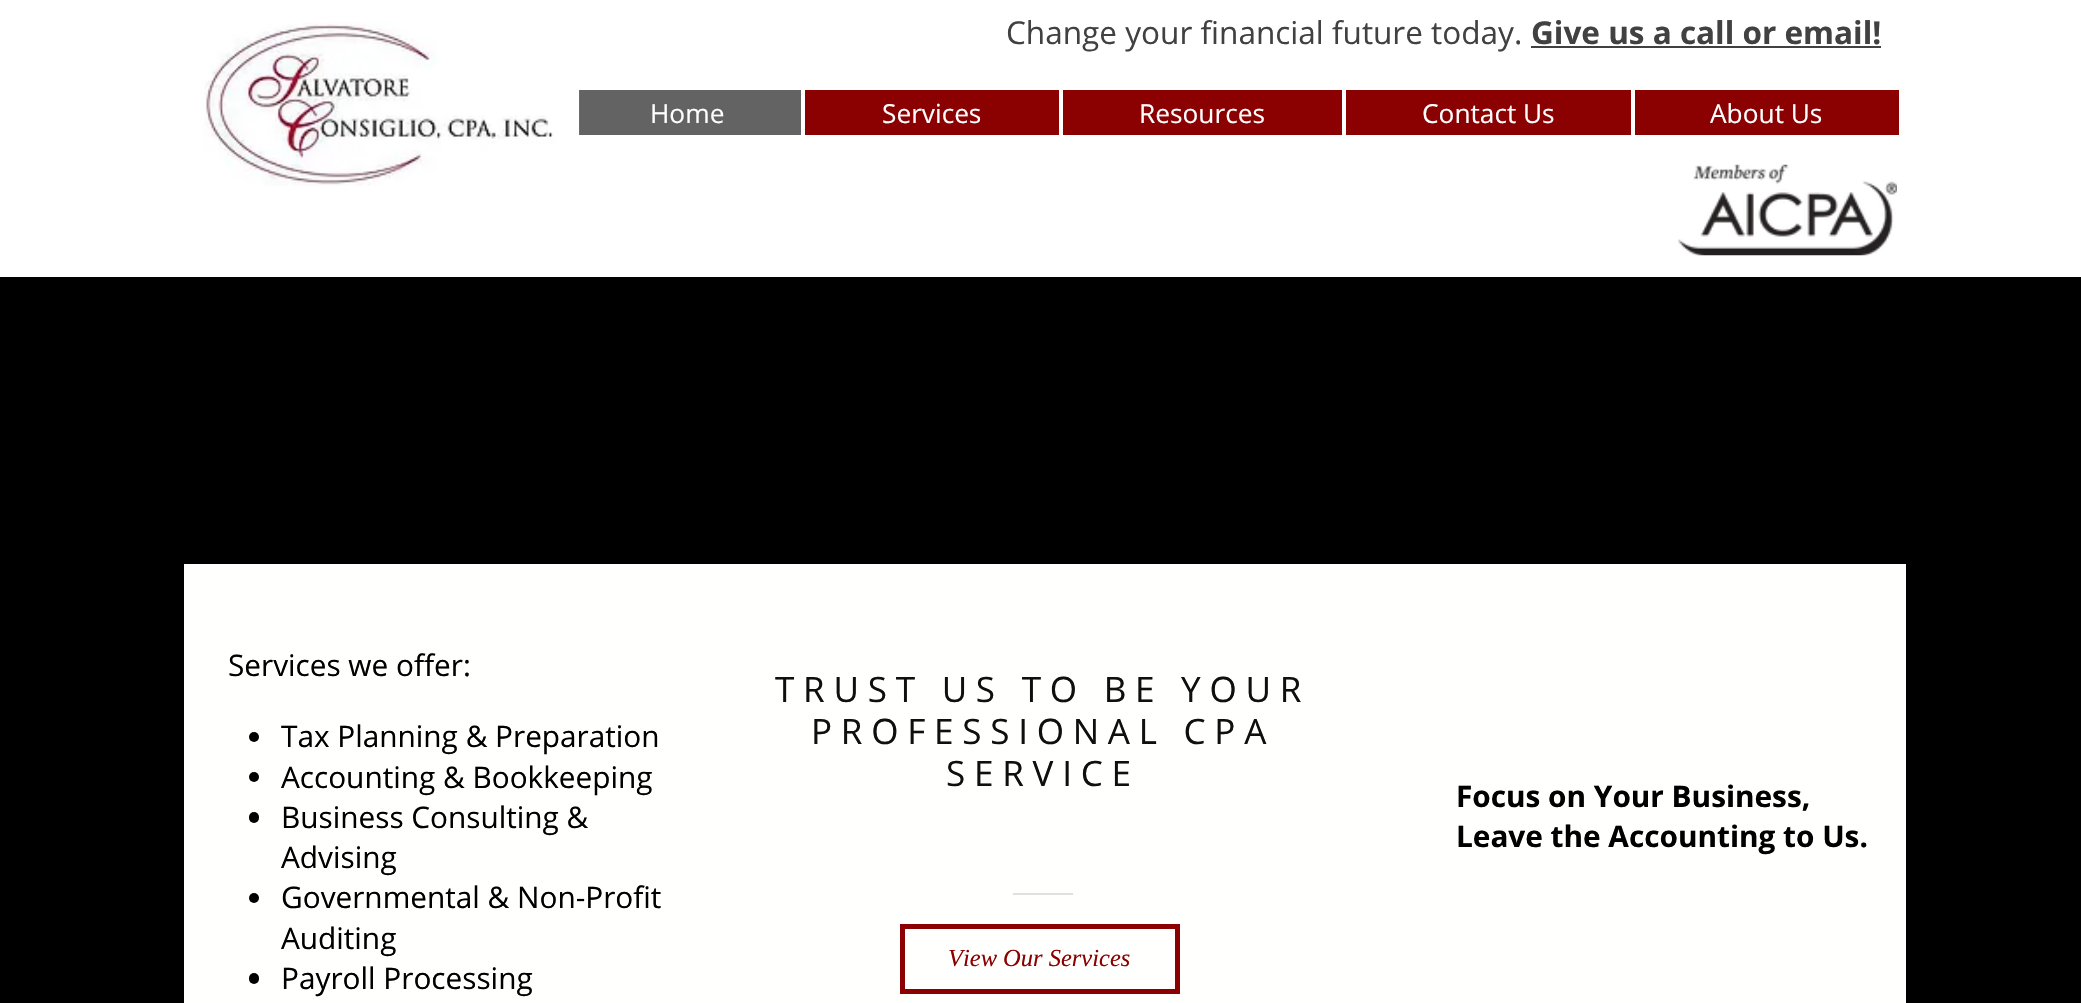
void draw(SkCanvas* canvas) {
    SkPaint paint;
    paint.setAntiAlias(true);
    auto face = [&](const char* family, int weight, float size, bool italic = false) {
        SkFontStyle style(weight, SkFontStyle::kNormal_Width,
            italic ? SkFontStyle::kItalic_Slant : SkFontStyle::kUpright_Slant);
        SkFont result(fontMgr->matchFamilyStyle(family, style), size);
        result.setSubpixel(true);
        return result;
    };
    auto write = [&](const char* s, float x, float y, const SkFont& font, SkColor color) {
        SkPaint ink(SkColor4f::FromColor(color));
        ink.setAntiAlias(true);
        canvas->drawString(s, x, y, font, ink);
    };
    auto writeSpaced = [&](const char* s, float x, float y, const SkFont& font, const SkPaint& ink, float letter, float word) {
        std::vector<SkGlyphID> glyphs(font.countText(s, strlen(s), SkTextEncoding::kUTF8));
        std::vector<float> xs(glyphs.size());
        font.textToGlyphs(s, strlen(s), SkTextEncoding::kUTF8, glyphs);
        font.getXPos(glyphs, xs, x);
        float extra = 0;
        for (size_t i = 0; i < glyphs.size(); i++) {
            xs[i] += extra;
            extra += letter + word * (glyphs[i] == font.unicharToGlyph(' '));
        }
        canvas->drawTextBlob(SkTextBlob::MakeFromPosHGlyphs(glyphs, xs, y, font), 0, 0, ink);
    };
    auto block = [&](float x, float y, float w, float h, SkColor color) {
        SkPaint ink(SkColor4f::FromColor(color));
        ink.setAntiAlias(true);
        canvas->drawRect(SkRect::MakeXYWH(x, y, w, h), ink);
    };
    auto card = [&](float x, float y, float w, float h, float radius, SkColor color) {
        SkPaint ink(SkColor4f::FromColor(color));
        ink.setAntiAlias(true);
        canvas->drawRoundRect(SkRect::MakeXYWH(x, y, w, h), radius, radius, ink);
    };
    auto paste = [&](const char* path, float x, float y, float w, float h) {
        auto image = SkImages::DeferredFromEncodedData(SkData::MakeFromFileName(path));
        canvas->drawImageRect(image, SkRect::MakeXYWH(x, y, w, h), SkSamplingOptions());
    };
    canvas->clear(SK_ColorWHITE);
    block(579, 90, 222, 45, SkColorSetRGB(99, 99, 99));
    paste("pic1.png", 201, 22, 379, 164);
    auto kFont1 = face("Open Sans", 400, 31.5f);
    write("Change your financial future today.", 1006, 44, kFont1, SkColorSetRGB(65, 65, 65));
    auto kFont2 = face("Open Sans", 700, 31.5f);
    write("Give us a call or email!", 1531, 44, kFont2, SkColorSetRGB(65, 65, 65));
    block(1531, 46, 350, 2, SkColorSetRGB(65, 65, 65));
    auto kFont3 = face("Open Sans", 400, 26.25f);
    write("Home", 650, 123, kFont3, SK_ColorWHITE);
    block(805, 90, 254, 45, SkColorSetRGB(139, 0, 0));
    write("Services", 882, 123, kFont3, SK_ColorWHITE);
    block(1063, 90, 279, 45, SkColorSetRGB(139, 0, 0));
    write("Resources", 1139, 123, kFont3, SK_ColorWHITE);
    block(1346, 90, 285, 45, SkColorSetRGB(139, 0, 0));
    write("Contact Us", 1422, 123, kFont3, SK_ColorWHITE);
    block(1635, 90, 264, 45, SkColorSetRGB(139, 0, 0));
    write("About Us", 1710, 123, kFont3, SK_ColorWHITE);
    paste("pic2.png", 1678, 164, 219, 92);
    block(0, 277, 2081, 726, SK_ColorBLACK);
    block(184, 564, 1722, 439, SkColorSetRGB(255, 255, 254));
    auto kFont4 = face("Open Sans", 400, 29.75f);
    write("Services we offer:", 228, 676, kFont4, SK_ColorBLACK);
    paint.setColor(SK_ColorBLACK);
    canvas->drawCircle(254, 737, 5, paint);
    write("Tax Planning & Preparation", 281, 747, kFont4, SK_ColorBLACK);
    canvas->drawCircle(254, 777, 5, paint);
    write("Accounting & Bookkeeping", 281, 788, kFont4, SK_ColorBLACK);
    card(249, 812, 10, 11, 5, SK_ColorBLACK);
    write("Business Consulting &", 281, 828, kFont4, SK_ColorBLACK);
    write("Advising", 281, 868, kFont4, SK_ColorBLACK);
    canvas->drawCircle(254, 898, 5, paint);
    write("Governmental & Non-Profit", 281, 908, kFont4, SK_ColorBLACK);
    write("Auditing", 281, 949, kFont4, SK_ColorBLACK);
    card(249, 973, 10, 11, 5, SK_ColorBLACK);
    write("Payroll Processing", 281, 989, kFont4, SK_ColorBLACK);
    auto kFont5 = face("Open Sans", 400, 35);
    paint.setColor(SkColorSetRGB(15, 15, 15));
    writeSpaced("TRUST US TO BE YOUR", 775, 702, kFont5, paint, 8.75f, 0);
    writeSpaced("PROFESSIONAL CPA", 811, 744, kFont5, paint, 8.75f, 0);
    writeSpaced("SERVICE", 946, 786, kFont5, paint, 8.75f, 0);
    auto kFont6 = face("Open Sans", 700, 29.75f);
    write("Focus on Your Business,", 1456, 807, kFont6, SK_ColorBLACK);
    write("Leave the Accounting to Us.", 1456, 847, kFont6, SK_ColorBLACK);
    block(1013, 893, 60, 2, SkColorSetRGB(224, 224, 224));
    paint.setStyle(SkPaint::kStroke_Style);
    paint.setStrokeWidth(5);
    paint.setColor(SkColorSetRGB(139, 0, 0));
    canvas->drawRect(SkRect::MakeXYWH(902.5f, 926.5f, 275, 65), paint);
    auto kFont7 = face("Liberation Serif", 400, 24.5f, true);
    write("View Our Services", 948, 966, kFont7, SkColorSetRGB(139, 0, 0));
}
